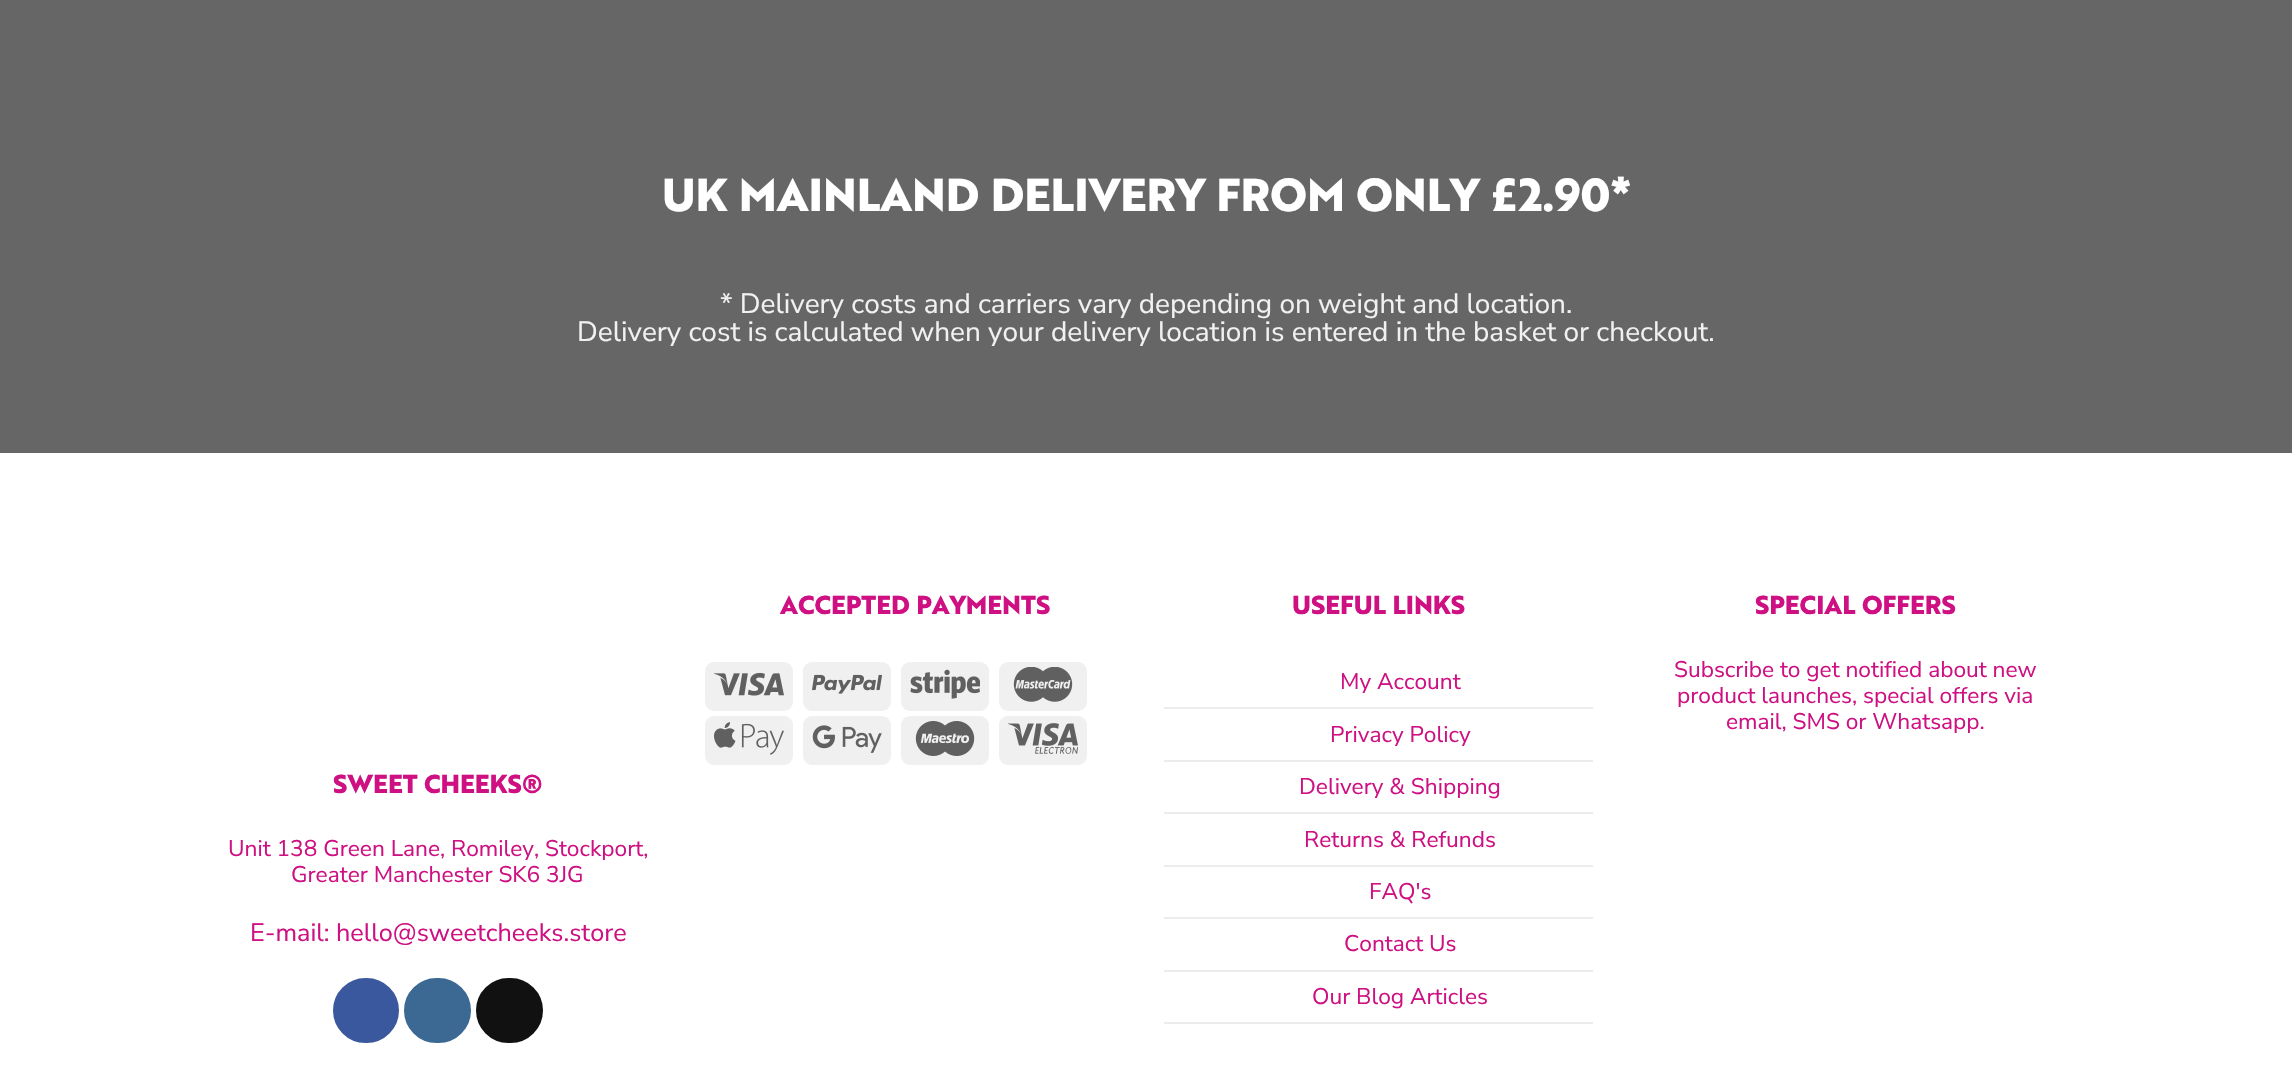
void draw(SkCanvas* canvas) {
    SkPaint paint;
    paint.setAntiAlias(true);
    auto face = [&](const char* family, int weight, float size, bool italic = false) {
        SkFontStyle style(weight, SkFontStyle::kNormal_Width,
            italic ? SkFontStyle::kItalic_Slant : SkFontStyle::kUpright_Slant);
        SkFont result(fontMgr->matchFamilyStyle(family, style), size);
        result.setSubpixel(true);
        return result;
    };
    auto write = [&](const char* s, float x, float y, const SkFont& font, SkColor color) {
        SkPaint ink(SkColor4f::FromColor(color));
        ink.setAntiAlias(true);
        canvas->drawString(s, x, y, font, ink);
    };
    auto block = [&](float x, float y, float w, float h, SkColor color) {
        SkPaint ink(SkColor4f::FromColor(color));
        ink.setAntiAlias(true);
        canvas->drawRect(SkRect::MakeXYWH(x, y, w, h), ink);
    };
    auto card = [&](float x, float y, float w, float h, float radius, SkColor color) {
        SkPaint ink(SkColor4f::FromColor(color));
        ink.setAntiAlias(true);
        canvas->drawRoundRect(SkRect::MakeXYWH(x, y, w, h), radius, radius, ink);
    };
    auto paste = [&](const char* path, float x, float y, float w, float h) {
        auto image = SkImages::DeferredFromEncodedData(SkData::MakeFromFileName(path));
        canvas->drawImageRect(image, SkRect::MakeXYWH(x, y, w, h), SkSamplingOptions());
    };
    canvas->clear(SK_ColorWHITE);
    block(0, 0, 2292, 453, SkColorSetRGB(102, 102, 102));
    auto kFont1 = face("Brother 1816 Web", 800, 44.8f);
    write("UK MAINLAND DELIVERY FROM ONLY £2.90*", 662, 211, kFont1, SK_ColorWHITE);
    auto kFont2 = face("Nunito Sans", 400, 28);
    write("* Delivery costs and carriers vary depending on weight and location.", 720, 313, kFont2, SkColorSetRGB(241, 241, 241));
    write("Delivery cost is calculated when your delivery location is entered in the basket or checkout.", 577, 341, kFont2, SkColorSetRGB(241, 241, 241));
    auto kFont3 = face("Brother 1816 Web", 800, 25.25f);
    write("ACCEPTED PAYMENTS", 780, 614, kFont3, SkColorSetRGB(206, 16, 130));
    card(705, 662, 88, 49, 9, SkColorSetRGB(240, 240, 240));
    paste("pic1.png", 714, 672, 70, 24);
    card(803, 662, 88, 49, 9, SkColorSetRGB(240, 240, 240));
    paste("pic2.png", 812, 674, 70, 20);
    card(901, 662, 88, 49, 9, SkColorSetRGB(240, 240, 240));
    paste("pic3.png", 910, 669, 70, 30);
    card(999, 662, 88, 49, 9, SkColorSetRGB(240, 240, 240));
    paste("pic4.png", 1013, 667, 60, 35);
    card(705, 716, 88, 49, 9, SkColorSetRGB(240, 240, 240));
    paste("pic5.png", 714, 722, 70, 33);
    card(803, 716, 88, 49, 9, SkColorSetRGB(240, 240, 240));
    paste("pic6.png", 812, 725, 70, 28);
    card(901, 716, 88, 49, 9, SkColorSetRGB(240, 240, 240));
    paste("pic7.png", 915, 721, 60, 35);
    card(999, 716, 88, 49, 9, SkColorSetRGB(240, 240, 240));
    paste("pic8.png", 1008, 723, 70, 31);
    write("USEFUL LINKS", 1292, 614, kFont3, SkColorSetRGB(206, 16, 130));
    block(1164, 707, 429, 2, SkColorSetRGB(236, 236, 236));
    auto kFont4 = face("Nunito Sans", 400, 22.7f);
    write("My Account", 1340, 689, kFont4, SkColorSetRGB(206, 16, 130));
    block(1164, 760, 429, 2, SkColorSetRGB(236, 236, 236));
    write("Privacy Policy", 1330, 742, kFont4, SkColorSetRGB(206, 16, 130));
    block(1164, 812, 429, 2, SkColorSetRGB(236, 236, 236));
    write("Delivery & Shipping", 1299, 794, kFont4, SkColorSetRGB(206, 16, 130));
    block(1164, 865, 429, 2, SkColorSetRGB(236, 236, 236));
    write("Returns & Refunds", 1304, 847, kFont4, SkColorSetRGB(206, 16, 130));
    block(1164, 917, 429, 2, SkColorSetRGB(236, 236, 236));
    write("FAQ's", 1369, 899, kFont4, SkColorSetRGB(206, 16, 130));
    block(1164, 970, 429, 2, SkColorSetRGB(236, 236, 236));
    write("Contact Us", 1344, 951, kFont4, SkColorSetRGB(206, 16, 130));
    block(1164, 1022, 429, 2, SkColorSetRGB(236, 236, 236));
    write("Our Blog Articles", 1312, 1004, kFont4, SkColorSetRGB(206, 16, 130));
    write("SPECIAL OFFERS", 1755, 614, kFont3, SkColorSetRGB(206, 16, 130));
    write("Subscribe to get notified about new", 1674, 677, kFont4, SkColorSetRGB(206, 16, 130));
    write("product launches, special offers via", 1677, 703, kFont4, SkColorSetRGB(206, 16, 130));
    write("email, SMS or Whatsapp.", 1726, 729, kFont4, SkColorSetRGB(206, 16, 130));
    write("SWEET CHEEKS®", 333, 793, kFont3, SkColorSetRGB(206, 16, 130));
    write("Unit 138 Green Lane, Romiley, Stockport,", 228, 856, kFont4, SkColorSetRGB(206, 16, 130));
    write("Greater Manchester SK6 3JG", 291, 882, kFont4, SkColorSetRGB(206, 16, 130));
    auto kFont5 = face("Nunito Sans", 400, 25.25f);
    write("E-mail: hello@sweetcheeks.store", 250, 941, kFont5, SkColorSetRGB(206, 16, 130));
    paint.setColor(SkColorSetRGB(58, 88, 157));
    canvas->drawRoundRect(SkRect::MakeXYWH(334, 979, 64, 63), 31.5f, 31.5f, paint);
    paint.setStyle(SkPaint::kStroke_Style);
    paint.setStrokeWidth(2);
    canvas->drawRoundRect(SkRect::MakeXYWH(334, 979, 64, 63), 31.5f, 31.5f, paint);
    paint.setStyle(SkPaint::kFill_Style);
    paint.setColor(SkColorSetRGB(59, 105, 148));
    canvas->drawRoundRect(SkRect::MakeXYWH(405, 979, 65, 63), 31.5f, 31.5f, paint);
    paint.setStyle(SkPaint::kStroke_Style);
    canvas->drawRoundRect(SkRect::MakeXYWH(405, 979, 65, 63), 31.5f, 31.5f, paint);
    paint.setStyle(SkPaint::kFill_Style);
    paint.setColor(SkColorSetRGB(17, 17, 17));
    canvas->drawRoundRect(SkRect::MakeXYWH(477, 979, 65, 63), 31.5f, 31.5f, paint);
    paint.setStyle(SkPaint::kStroke_Style);
    canvas->drawRoundRect(SkRect::MakeXYWH(477, 979, 65, 63), 31.5f, 31.5f, paint);
}
